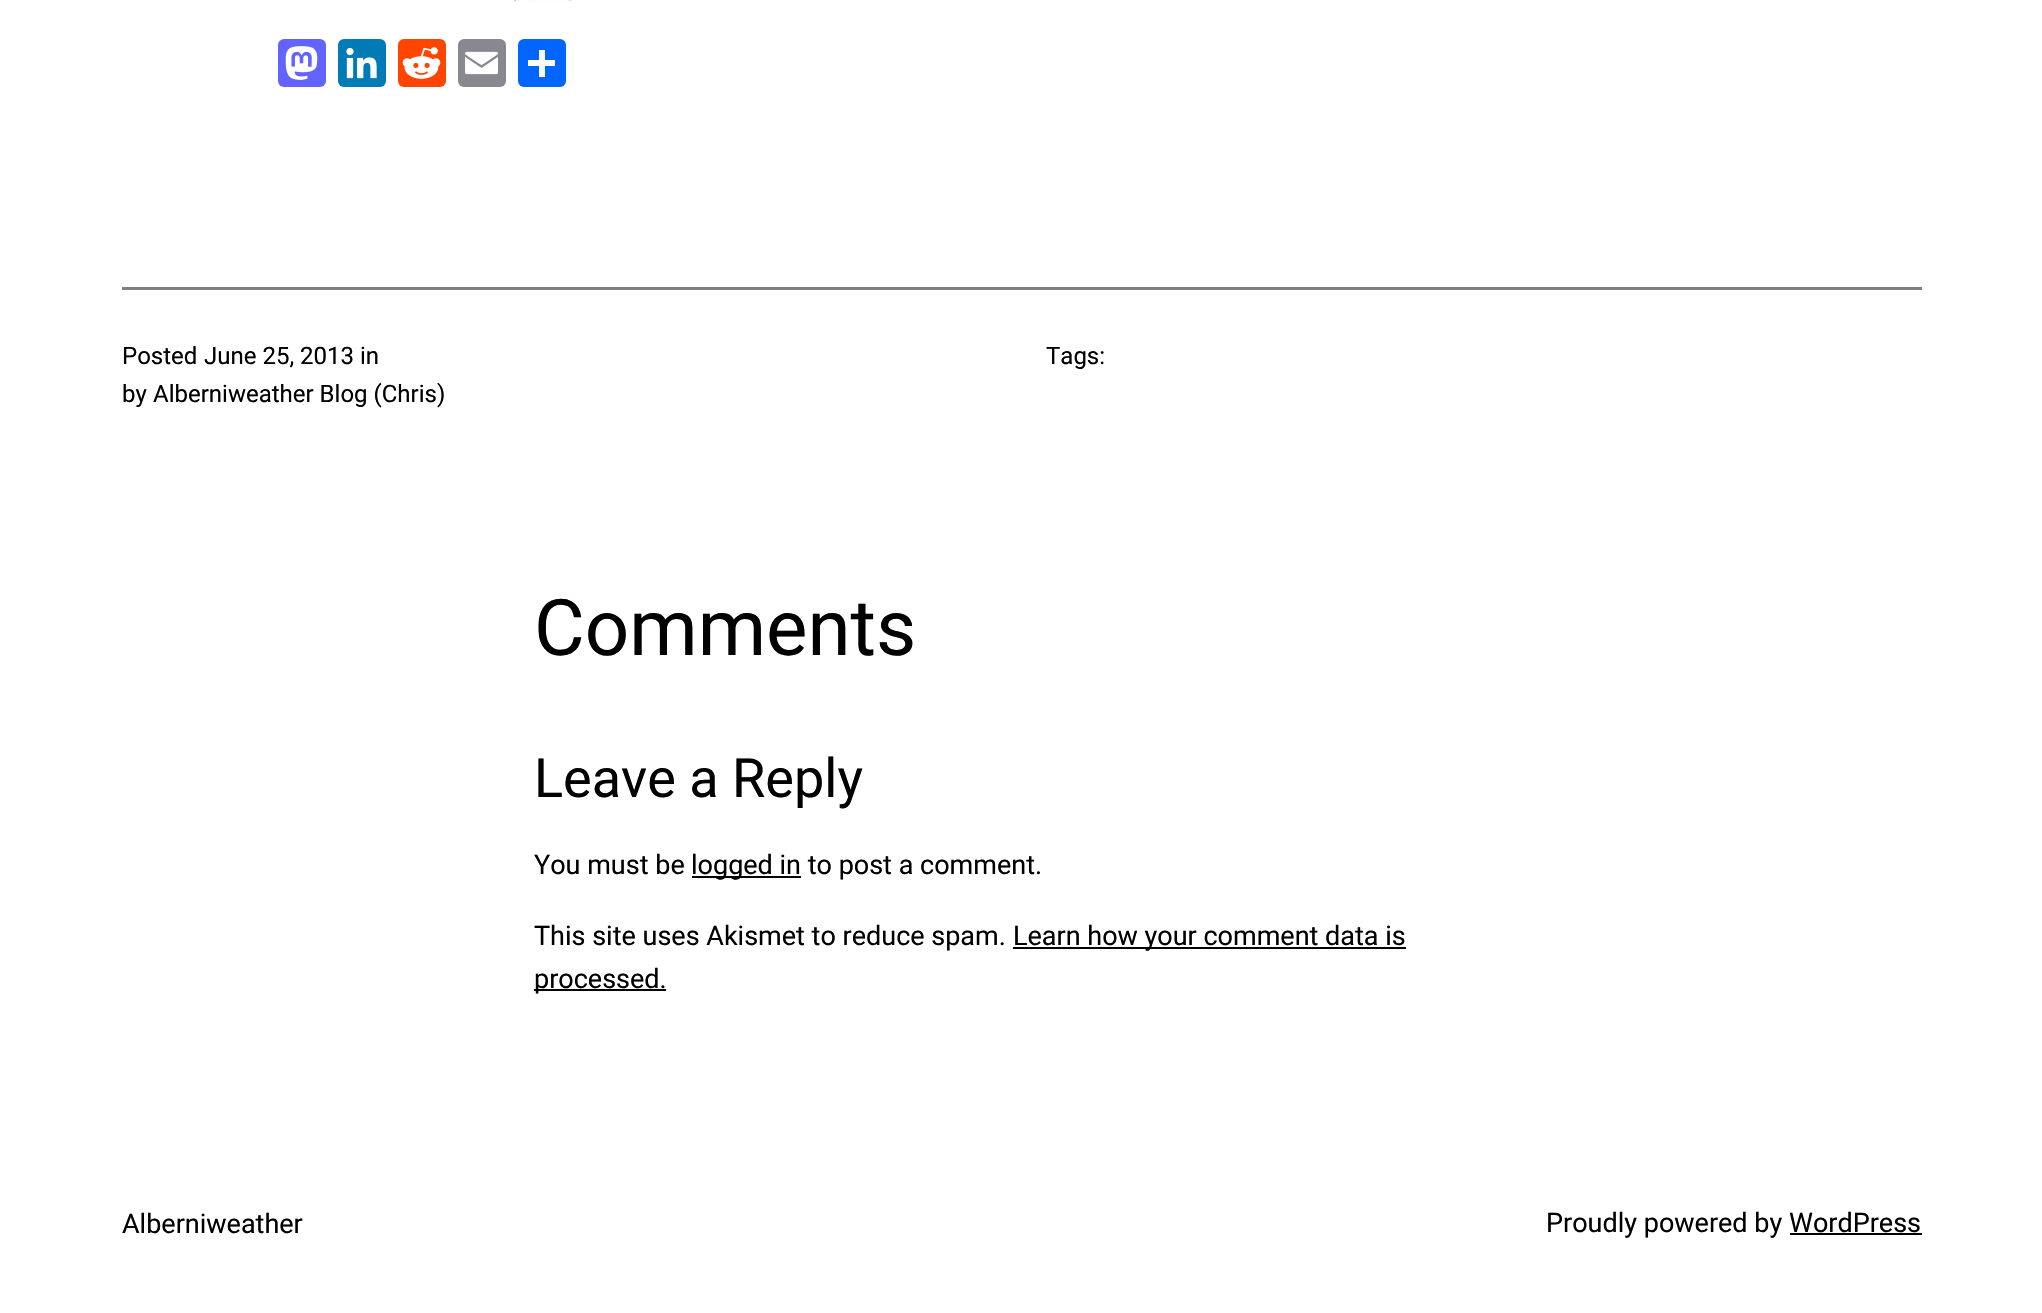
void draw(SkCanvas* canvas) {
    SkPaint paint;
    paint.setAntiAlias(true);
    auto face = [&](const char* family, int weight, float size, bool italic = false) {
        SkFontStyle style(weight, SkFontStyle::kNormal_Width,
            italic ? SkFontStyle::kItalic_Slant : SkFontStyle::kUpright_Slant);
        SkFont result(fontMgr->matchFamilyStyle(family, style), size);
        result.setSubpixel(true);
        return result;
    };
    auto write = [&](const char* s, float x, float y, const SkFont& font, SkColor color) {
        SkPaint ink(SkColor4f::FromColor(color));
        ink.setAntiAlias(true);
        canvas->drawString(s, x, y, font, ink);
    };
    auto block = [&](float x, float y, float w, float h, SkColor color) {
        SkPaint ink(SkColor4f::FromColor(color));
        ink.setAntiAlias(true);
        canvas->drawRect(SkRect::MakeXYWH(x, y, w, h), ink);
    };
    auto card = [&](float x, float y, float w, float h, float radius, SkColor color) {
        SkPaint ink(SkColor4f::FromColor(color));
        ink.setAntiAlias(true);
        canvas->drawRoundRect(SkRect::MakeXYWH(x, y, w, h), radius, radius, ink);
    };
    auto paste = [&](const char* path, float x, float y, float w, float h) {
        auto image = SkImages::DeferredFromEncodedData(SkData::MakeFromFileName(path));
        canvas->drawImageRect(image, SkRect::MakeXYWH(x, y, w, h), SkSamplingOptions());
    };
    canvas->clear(SK_ColorWHITE);
    paste("pic1.png", 513, 0, 59, 2);
    card(278, 39, 48, 48, 6, SkColorSetRGB(99, 100, 255));
    paste("pic2.png", 285, 46, 33, 34);
    card(338, 39, 48, 48, 6, SkColorSetRGB(0, 123, 181));
    paste("pic3.png", 346, 47, 31, 32);
    card(398, 39, 48, 48, 6, SkColorSetRGB(255, 69, 0));
    paste("pic4.png", 402, 47, 39, 32);
    card(458, 39, 48, 48, 6, SkColorSetRGB(136, 137, 144));
    paste("pic5.png", 465, 51, 33, 24);
    card(518, 39, 48, 48, 6, SkColorSetRGB(1, 102, 255));
    block(539, 50, 6, 27, SK_ColorWHITE);
    block(528, 60, 27, 6, SK_ColorWHITE);
    block(122, 287, 1800, 3, SkColorSetRGB(128, 128, 128));
    auto kFont1 = face("Roboto", 400, 24);
    write("Posted", 122, 364, kFont1, SK_ColorBLACK);
    write("June 25, 2013", 204, 364, kFont1, SK_ColorBLACK);
    write("in", 360, 364, kFont1, SK_ColorBLACK);
    write("by", 122, 402, kFont1, SK_ColorBLACK);
    write("Alberniweather Blog (Chris)", 153, 402, kFont1, SK_ColorBLACK);
    write("Tags:", 1046, 364, kFont1, SK_ColorBLACK);
    auto kFont2 = face("Roboto", 400, 78);
    write("Comments", 534, 655, kFont2, SK_ColorBLACK);
    auto kFont3 = face("Roboto", 400, 54);
    write("Leave a Reply", 534, 797, kFont3, SK_ColorBLACK);
    auto kFont4 = face("Roboto", 400, 27);
    write("You must be", 534, 874, kFont4, SK_ColorBLACK);
    block(692, 876, 109, 2, SK_ColorBLACK);
    write("logged in to post a comment.", 691, 874, kFont4, SK_ColorBLACK);
    write("This site uses Akismet to reduce spam.", 534, 945, kFont4, SK_ColorBLACK);
    block(1013, 947, 393, 2, SK_ColorBLACK);
    write("Learn how your comment data is", 1013, 945, kFont4, SK_ColorBLACK);
    block(534, 989, 132, 2, SK_ColorBLACK);
    write("processed.", 534, 988, kFont4, SK_ColorBLACK);
    write("Alberniweather", 122, 1233, kFont4, SK_ColorBLACK);
    write("Proudly powered by WordPress", 1546, 1232, kFont4, SK_ColorBLACK);
    block(1790, 1233, 132, 2, SK_ColorBLACK);
}
